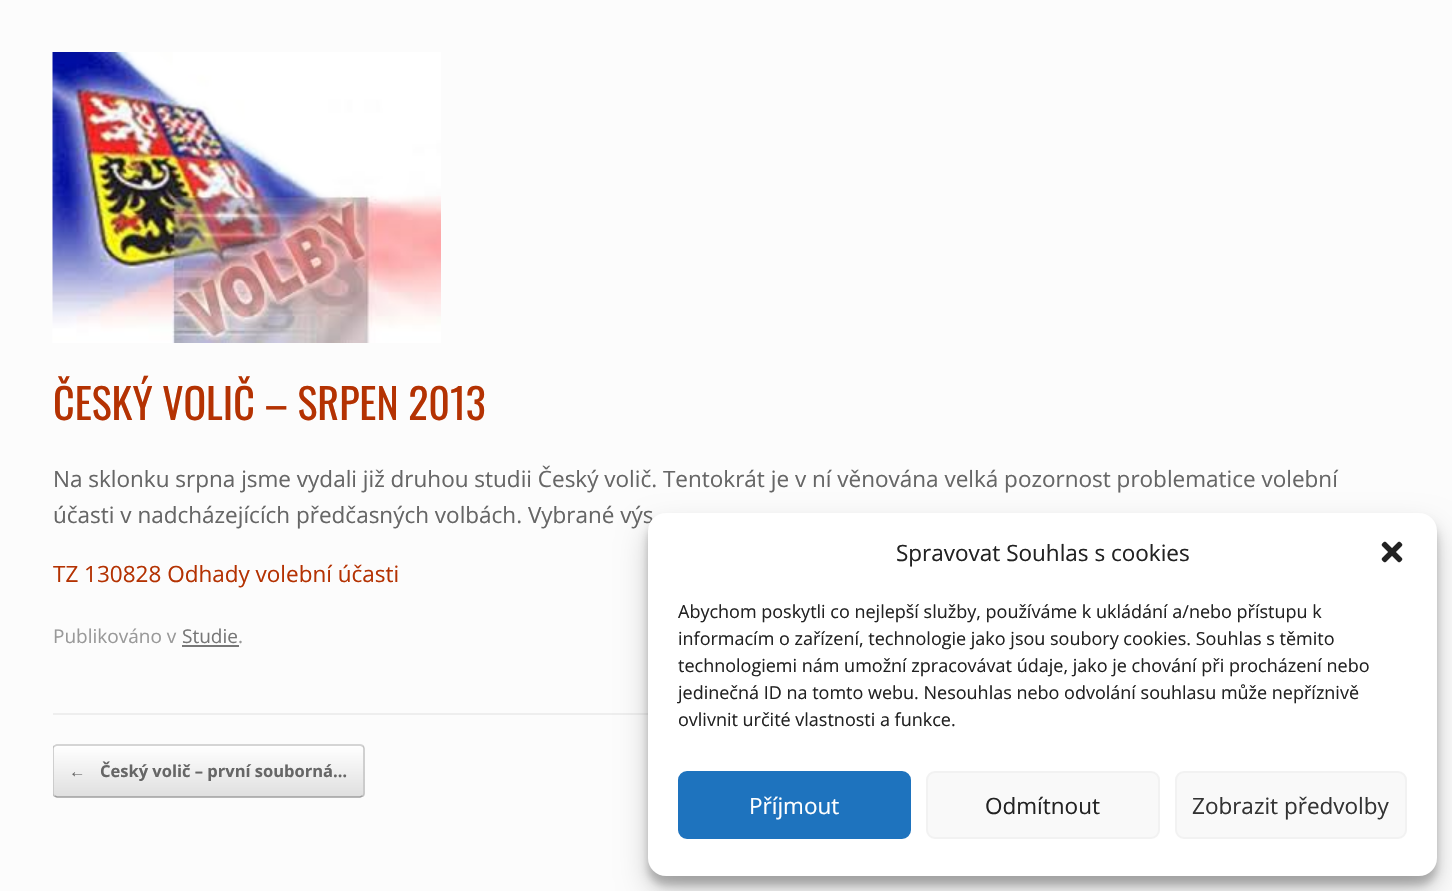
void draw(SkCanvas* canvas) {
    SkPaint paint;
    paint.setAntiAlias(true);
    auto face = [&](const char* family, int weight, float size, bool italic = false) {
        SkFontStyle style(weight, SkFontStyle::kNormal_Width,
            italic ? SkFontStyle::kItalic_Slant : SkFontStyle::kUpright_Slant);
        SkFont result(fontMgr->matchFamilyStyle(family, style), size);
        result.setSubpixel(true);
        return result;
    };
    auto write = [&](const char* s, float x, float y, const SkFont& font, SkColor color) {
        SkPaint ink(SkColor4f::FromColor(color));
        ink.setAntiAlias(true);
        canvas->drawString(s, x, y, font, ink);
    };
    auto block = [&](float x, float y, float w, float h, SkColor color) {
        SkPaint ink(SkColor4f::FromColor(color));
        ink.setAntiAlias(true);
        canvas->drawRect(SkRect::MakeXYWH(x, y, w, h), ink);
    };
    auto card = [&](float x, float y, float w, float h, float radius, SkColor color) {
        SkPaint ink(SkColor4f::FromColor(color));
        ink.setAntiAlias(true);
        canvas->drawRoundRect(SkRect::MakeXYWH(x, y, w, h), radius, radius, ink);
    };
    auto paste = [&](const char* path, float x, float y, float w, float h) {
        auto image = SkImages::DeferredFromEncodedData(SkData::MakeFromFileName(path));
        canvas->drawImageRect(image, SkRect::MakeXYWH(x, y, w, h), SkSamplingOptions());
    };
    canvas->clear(SkColorSetRGB(252, 252, 252));
    block(53, 713, 595, 2, SkColorSetRGB(238, 238, 238));
    paste("pic1.png", 52, 52, 389, 291);
    auto kFont1 = face("Oswald", 400, 42);
    write("ČESKÝ VOLIČ – SRPEN 2013", 53, 420, kFont1, SkColorSetRGB(180, 50, 2));
    auto kFont2 = face("Open Sans", 400, 22.5f);
    write("Na sklonku srpna jsme vydali již druhou studii Český volič. Tentokrát je v ní věnována velká pozornost problematice volební", 53, 487, kFont2, SkColorSetRGB(102, 102, 102));
    write("účasti v nadcházejících předčasných volbách. Vybrané výs", 53, 523, kFont2, SkColorSetRGB(102, 102, 102));
    write("TZ 130828 Odhady volební účasti", 53, 582, kFont2, SkColorSetRGB(180, 50, 2));
    auto kFont3 = face("Open Sans", 400, 19);
    write("Publikováno v", 53, 643, kFont3, SkColorSetRGB(153, 153, 153));
    write("Studie", 182, 643, kFont3, SkColorSetRGB(119, 119, 119));
    block(182, 645, 57, 2, SkColorSetRGB(119, 119, 119));
    write(".", 238, 643, kFont3, SkColorSetRGB(153, 153, 153));
    canvas->save();
    canvas->clipPath(SkPathBuilder().moveTo(58, 744).lineTo(360, 744).cubicTo(363, 744, 365, 746, 365, 749).lineTo(365, 793).cubicTo(365, 796, 363, 798, 360, 798).lineTo(58, 798).cubicTo(55, 798, 53, 796, 53, 793).lineTo(53, 749).cubicTo(53, 746, 55, 744, 58, 744).close().detach(), true);
    {
        const SkColor colors[] = {SkColorSetRGB(223, 223, 223), SK_ColorWHITE};
        const float stops[] = {0, 1};
        const SkPoint ends[] = {{54, 746}, {54, 695}};
        paint.setShader(SkGradientShader::MakeLinear(ends, colors, stops, 2, SkTileMode::kClamp));
        paint.setAlpha(255);
    }
    canvas->drawRect(SkRect::MakeXYWH(53, 744, 312, 2), paint);
    {
        const SkColor colors[] = {SkColorSetRGB(223, 223, 223), SK_ColorWHITE};
        const float stops[] = {0, 1};
        const SkPoint ends[] = {{54, 797}, {54, 746}};
        paint.setShader(SkGradientShader::MakeLinear(ends, colors, stops, 2, SkTileMode::kClamp));
        paint.setAlpha(255);
    }
    canvas->drawRect(SkRect::MakeXYWH(53, 746, 312, 51), paint);
    {
        const SkColor colors[] = {SkColorSetRGB(223, 223, 223), SK_ColorWHITE};
        const float stops[] = {0, 1};
        const SkPoint ends[] = {{54, 848}, {54, 797}};
        paint.setShader(SkGradientShader::MakeLinear(ends, colors, stops, 2, SkTileMode::kClamp));
        paint.setAlpha(255);
    }
    canvas->drawRect(SkRect::MakeXYWH(53, 797, 312, 1), paint);
    canvas->restore();
    paint.setStyle(SkPaint::kStroke_Style);
    paint.setStrokeWidth(1.5f);
    paint.setShader(nullptr);
    paint.setColor(SkColorSetRGB(210, 210, 210));
    canvas->drawPath(SkPathBuilder().moveTo(54.5f, 746).lineTo(57, 745).lineTo(360, 745).lineTo(362.5f, 746).detach(), paint);
    paint.setColor(SkColorSetRGB(195, 195, 195));
    canvas->drawPath(SkPathBuilder().moveTo(362.5f, 746).cubicTo(363.5f, 746.5f, 364, 747.5f, 364, 748.5f).lineTo(364, 793.5f).cubicTo(364, 794.5f, 363.5f, 795.5f, 362.5f, 796).detach(), paint);
    paint.setColor(SkColorSetRGB(159, 159, 159));
    canvas->drawPath(SkPathBuilder().moveTo(362.5f, 796).lineTo(360, 797).lineTo(57, 797).lineTo(54.5f, 796).detach(), paint);
    canvas->save();
    canvas->clipRect(SkRect::MakeXYWH(53, 744, 1347, 54));
    paint.setColor(SkColorSetRGB(195, 195, 195));
    canvas->drawPath(SkPathBuilder().moveTo(54.5f, 796).cubicTo(53.5f, 795.5f, 53, 794.5f, 53, 793.5f).lineTo(53, 748.5f).cubicTo(53, 747.5f, 53.5f, 746.5f, 54.5f, 746).detach(), paint);
    canvas->restore();
    auto kFont4 = face("Liberation Serif", 700, 16.5f);
    write("←", 69, 777, kFont4, SkColorSetRGB(102, 102, 102));
    auto kFont5 = face("Open Sans", 700, 16.5f);
    write("Český volič – první souborná…", 100, 777, kFont5, SkColorSetRGB(102, 102, 102));
    paint.setStyle(SkPaint::kFill_Style);
    paint.setColor(SkColorSetARGB(59, 0, 0, 0));
    paint.setMaskFilter(SkMaskFilter::MakeBlur(kNormal_SkBlurStyle, 4.5f));
    canvas->drawRoundRect(SkRect::MakeXYWH(648, 522, 789, 363), 18, 18, paint);
    paint.setMaskFilter(nullptr);
    paint.setColor(SkColorSetARGB(48, 0, 0, 0));
    paint.setMaskFilter(SkMaskFilter::MakeBlur(kNormal_SkBlurStyle, 15));
    canvas->drawRoundRect(SkRect::MakeXYWH(648, 528, 789, 363), 18, 18, paint);
    paint.setMaskFilter(nullptr);
    card(648, 513, 789, 363, 18, SK_ColorWHITE);
    write("Spravovat Souhlas s cookies", 896, 561, kFont2, SkColorSetRGB(34, 34, 34));
    paste("pic2.png", 1381, 541, 22, 22);
    auto kFont6 = face("Open Sans", 400, 18);
    write("Abychom poskytli co nejlepší služby, používáme k ukládání a/nebo přístupu k", 678, 618, kFont6, SkColorSetRGB(34, 34, 34));
    write("informacím o zařízení, technologie jako jsou soubory cookies. Souhlas s těmito", 678, 645, kFont6, SkColorSetRGB(34, 34, 34));
    write("technologiemi nám umožní zpracovávat údaje, jako je chování při procházení nebo", 678, 672, kFont6, SkColorSetRGB(34, 34, 34));
    write("jedinečná ID na tomto webu. Nesouhlas nebo odvolání souhlasu může nepříznivě", 678, 699, kFont6, SkColorSetRGB(34, 34, 34));
    write("ovlivnit určité vlastnosti a funkce.", 678, 726, kFont6, SkColorSetRGB(34, 34, 34));
    paint.setColor(SkColorSetRGB(30, 115, 190));
    canvas->drawRoundRect(SkRect::MakeXYWH(679, 772, 231, 66), 8, 8, paint);
    paint.setStyle(SkPaint::kStroke_Style);
    paint.setStrokeWidth(2);
    canvas->drawRoundRect(SkRect::MakeXYWH(679, 772, 231, 66), 8, 8, paint);
    write("Příjmout", 749, 814, kFont2, SK_ColorWHITE);
    paint.setStyle(SkPaint::kFill_Style);
    paint.setColor(SkColorSetRGB(249, 249, 249));
    canvas->drawRoundRect(SkRect::MakeXYWH(927, 772, 232, 66), 8, 8, paint);
    paint.setStyle(SkPaint::kStroke_Style);
    paint.setColor(SkColorSetRGB(242, 242, 242));
    canvas->drawRoundRect(SkRect::MakeXYWH(927, 772, 232, 66), 8, 8, paint);
    write("Odmítnout", 985, 814, kFont2, SkColorSetRGB(34, 34, 34));
    paint.setStyle(SkPaint::kFill_Style);
    paint.setColor(SkColorSetRGB(249, 249, 249));
    canvas->drawRoundRect(SkRect::MakeXYWH(1176, 772, 230, 66), 8, 8, paint);
    paint.setStyle(SkPaint::kStroke_Style);
    paint.setColor(SkColorSetRGB(242, 242, 242));
    canvas->drawRoundRect(SkRect::MakeXYWH(1176, 772, 230, 66), 8, 8, paint);
    write("Zobrazit předvolby", 1192, 814, kFont2, SkColorSetRGB(51, 51, 51));
}
